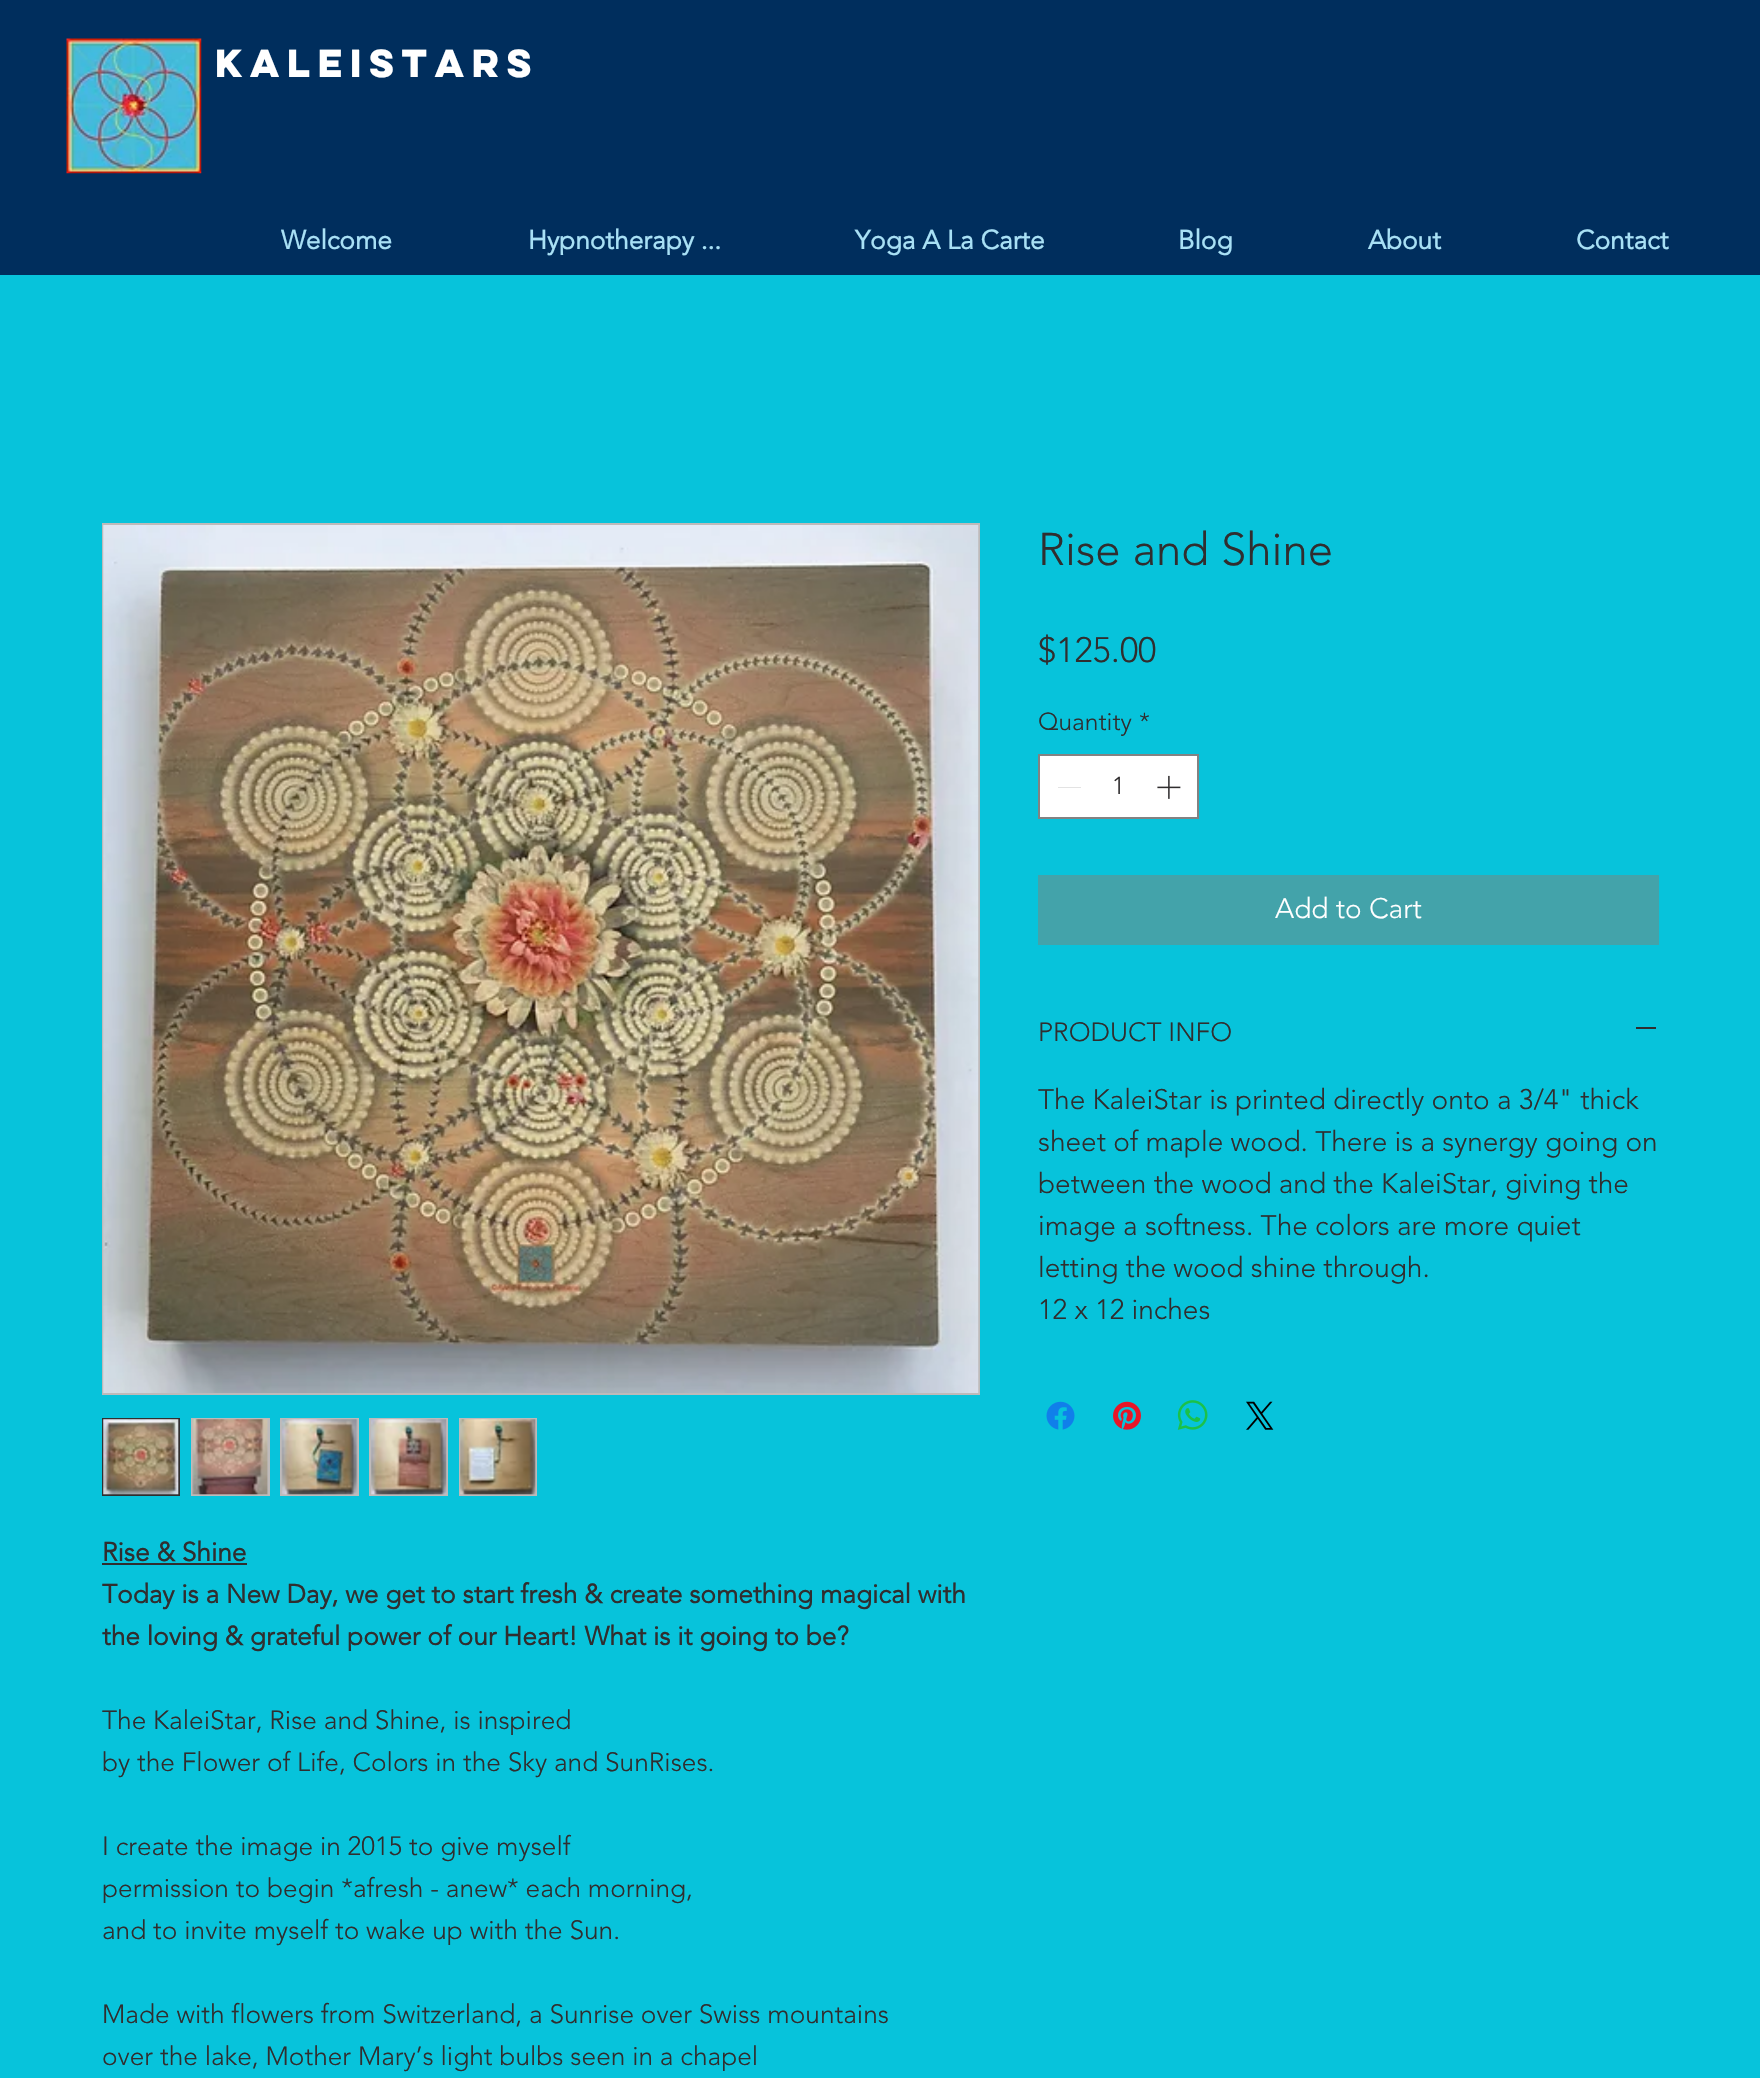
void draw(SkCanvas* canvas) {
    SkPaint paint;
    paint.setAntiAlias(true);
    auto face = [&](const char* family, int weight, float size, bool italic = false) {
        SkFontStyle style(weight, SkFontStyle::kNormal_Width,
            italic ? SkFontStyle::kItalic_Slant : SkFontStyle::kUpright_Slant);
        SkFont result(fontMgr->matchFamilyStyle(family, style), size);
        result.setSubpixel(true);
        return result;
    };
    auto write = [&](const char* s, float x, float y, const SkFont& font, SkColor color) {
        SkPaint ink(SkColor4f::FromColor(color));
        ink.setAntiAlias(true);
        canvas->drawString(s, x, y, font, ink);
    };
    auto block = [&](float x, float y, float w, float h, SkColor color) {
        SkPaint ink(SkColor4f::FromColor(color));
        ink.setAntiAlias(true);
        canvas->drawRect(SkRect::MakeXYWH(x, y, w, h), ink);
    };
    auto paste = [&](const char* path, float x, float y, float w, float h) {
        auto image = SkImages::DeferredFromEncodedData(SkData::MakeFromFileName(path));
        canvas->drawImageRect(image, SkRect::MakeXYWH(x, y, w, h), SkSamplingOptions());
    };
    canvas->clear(SkColorSetRGB(7, 195, 219));
    block(0, 0, 1760, 275, SkColorSetRGB(0, 46, 93));
    paste("pic1.png", 66, 38, 136, 136);
    auto kFont1 = face("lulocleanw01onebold", 700, 35);
    write("Kaleistars", 215, 77, kFont1, SK_ColorWHITE);
    auto kFont2 = face("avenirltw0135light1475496", 700, 26.25f);
    write("Welcome", 281, 249, kFont2, SkColorSetRGB(168, 224, 245));
    write("Hypnotherapy ...", 528, 249, kFont2, SkColorSetRGB(168, 224, 245));
    write("Yoga A La Carte", 855, 249, kFont2, SkColorSetRGB(168, 224, 245));
    write("Blog", 1178, 249, kFont2, SkColorSetRGB(168, 224, 245));
    write("About", 1368, 249, kFont2, SkColorSetRGB(168, 224, 245));
    write("Contact", 1576, 249, kFont2, SkColorSetRGB(168, 224, 245));
    auto kFont3 = face("avenirltw0135light1475496", 300, 45.5f);
    write("Rise and Shine", 1038, 565, kFont3, SkColorSetRGB(48, 46, 47));
    auto kFont4 = face("avenirltw0135light1475496", 300, 35);
    write("$125.00", 1038, 662, kFont4, SkColorSetRGB(48, 46, 47));
    auto kFont5 = face("avenirltw0135light1475496", 300, 24.5f);
    write("Quantity", 1038, 730, kFont5, SkColorSetRGB(48, 46, 47));
    write("*", 1139, 730, kFont5, SkColorSetRGB(48, 46, 47));
    paint.setColor(SK_ColorWHITE);
    canvas->drawRect(SkRect::MakeXYWH(1039, 755, 159, 63), paint);
    paint.setStyle(SkPaint::kStroke_Style);
    paint.setStrokeWidth(2);
    paint.setColor(SkColorSetRGB(131, 130, 130));
    canvas->drawRect(SkRect::MakeXYWH(1039, 755, 159, 63), paint);
    block(1058, 787, 23, 1, SkColorSetRGB(227, 227, 227));
    write("1", 1112, 794, kFont5, SkColorSetRGB(48, 46, 47));
    paste("pic2.png", 1157, 775, 24, 24);
    block(1038, 875, 621, 70, SkColorSetRGB(67, 163, 170));
    auto kFont6 = face("avenirltw0135light1475496", 300, 28);
    write("Add to Cart", 1275, 918, kFont6, SK_ColorWHITE);
    auto kFont7 = face("avenirltw0135light1475496", 300, 26.25f);
    write("PRODUCT INFO", 1038, 1041, kFont7, SkColorSetRGB(48, 46, 47));
    block(1636, 1027, 20, 2, SkColorSetRGB(48, 46, 47));
    write("The KaleiStar is printed directly onto a 3/4\" thick", 1038, 1109, kFont6, SkColorSetRGB(48, 46, 47));
    write("sheet of maple wood. There is a synergy going on", 1038, 1151, kFont6, SkColorSetRGB(48, 46, 47));
    write("between the wood and the KaleiStar, giving the", 1038, 1193, kFont6, SkColorSetRGB(48, 46, 47));
    write("image a softness. The colors are more quiet", 1038, 1235, kFont6, SkColorSetRGB(48, 46, 47));
    write("letting the wood shine through.", 1038, 1277, kFont6, SkColorSetRGB(48, 46, 47));
    write("12 x 12 inches", 1038, 1319, kFont6, SkColorSetRGB(48, 46, 47));
    paste("pic3.png", 1046, 1401, 29, 29);
    paste("pic4.png", 1113, 1401, 28, 29);
    paste("pic5.png", 1177, 1400, 31, 30);
    paste("pic6.png", 1246, 1401, 28, 29);
    paint.setColor(SkColorSetRGB(190, 186, 186));
    canvas->drawRect(SkRect::MakeXYWH(103, 524, 876, 870), paint);
    paste("pic7.png", 103, 525, 876, 868);
    paint.setColor(SkColorSetRGB(48, 46, 47));
    canvas->drawRect(SkRect::MakeXYWH(103, 1419, 76, 76), paint);
    paste("pic8.png", 103, 1419, 76, 76);
    block(191, 1418, 79, 78, SkColorSetRGB(190, 186, 186));
    paste("pic9.png", 192, 1419, 76, 76);
    block(280, 1418, 79, 78, SkColorSetRGB(190, 186, 186));
    paste("pic10.png", 281, 1419, 77, 76);
    block(369, 1418, 79, 78, SkColorSetRGB(190, 186, 186));
    paste("pic11.png", 371, 1419, 76, 76);
    block(459, 1418, 78, 78, SkColorSetRGB(190, 186, 186));
    paste("pic12.png", 460, 1419, 76, 76);
    write("Rise & Shine", 102, 1561, kFont2, SkColorSetRGB(48, 46, 47));
    block(102, 1563, 145, 2, SkColorSetRGB(48, 46, 47));
    write("Today is a New Day, we get to start fresh & create something magical with", 102, 1603, kFont2, SkColorSetRGB(48, 46, 47));
    write("the loving & grateful power of our Heart! What is it going to be?", 102, 1645, kFont2, SkColorSetRGB(48, 46, 47));
    write("The KaleiStar, Rise and Shine, is inspired", 102, 1729, kFont7, SkColorSetRGB(48, 46, 47));
    write("by the Flower of Life, Colors in the Sky and SunRises.", 102, 1771, kFont7, SkColorSetRGB(48, 46, 47));
    write("I create the image in 2015 to give myself", 102, 1855, kFont7, SkColorSetRGB(48, 46, 47));
    write("permission to begin *afresh - anew* each morning,", 102, 1897, kFont7, SkColorSetRGB(48, 46, 47));
    write("and to invite myself to wake up with the Sun.", 102, 1939, kFont7, SkColorSetRGB(48, 46, 47));
    write("Made with flowers from Switzerland, a Sunrise over Swiss mountains", 102, 2023, kFont7, SkColorSetRGB(48, 46, 47));
    write("over the lake, Mother Mary’s light bulbs seen in a chapel", 102, 2065, kFont7, SkColorSetRGB(48, 46, 47));
}
